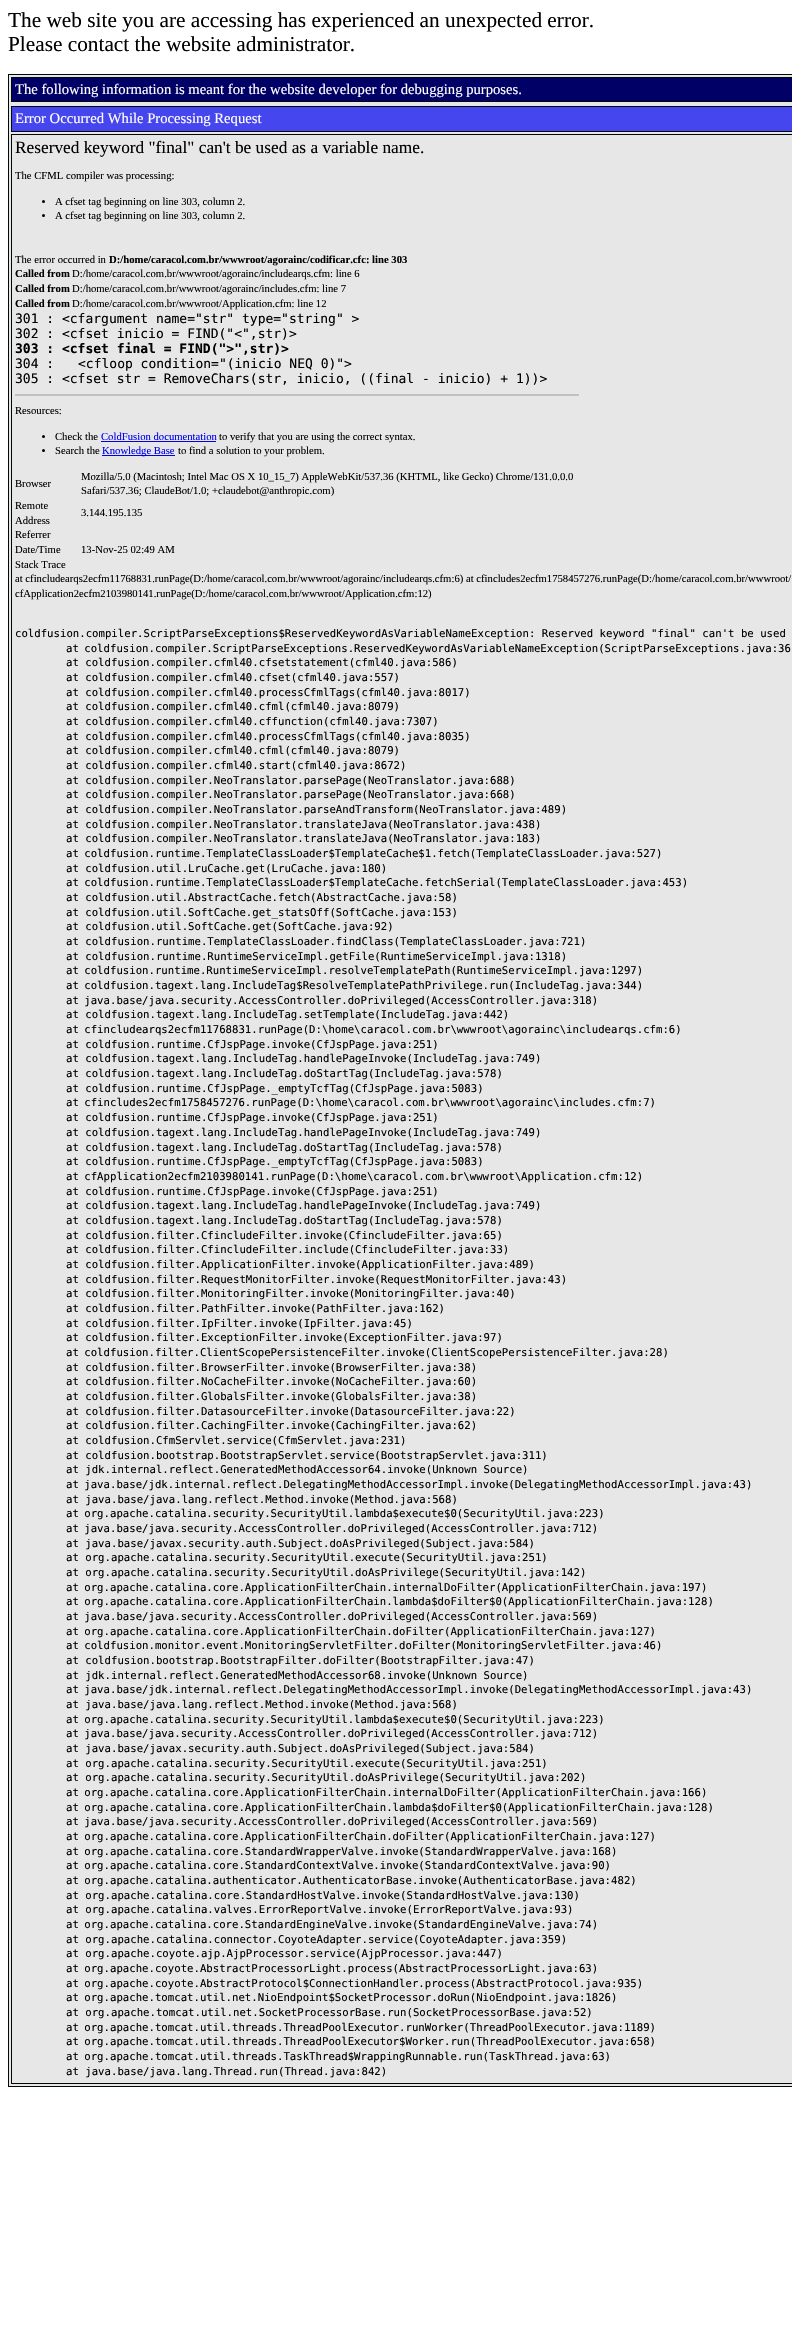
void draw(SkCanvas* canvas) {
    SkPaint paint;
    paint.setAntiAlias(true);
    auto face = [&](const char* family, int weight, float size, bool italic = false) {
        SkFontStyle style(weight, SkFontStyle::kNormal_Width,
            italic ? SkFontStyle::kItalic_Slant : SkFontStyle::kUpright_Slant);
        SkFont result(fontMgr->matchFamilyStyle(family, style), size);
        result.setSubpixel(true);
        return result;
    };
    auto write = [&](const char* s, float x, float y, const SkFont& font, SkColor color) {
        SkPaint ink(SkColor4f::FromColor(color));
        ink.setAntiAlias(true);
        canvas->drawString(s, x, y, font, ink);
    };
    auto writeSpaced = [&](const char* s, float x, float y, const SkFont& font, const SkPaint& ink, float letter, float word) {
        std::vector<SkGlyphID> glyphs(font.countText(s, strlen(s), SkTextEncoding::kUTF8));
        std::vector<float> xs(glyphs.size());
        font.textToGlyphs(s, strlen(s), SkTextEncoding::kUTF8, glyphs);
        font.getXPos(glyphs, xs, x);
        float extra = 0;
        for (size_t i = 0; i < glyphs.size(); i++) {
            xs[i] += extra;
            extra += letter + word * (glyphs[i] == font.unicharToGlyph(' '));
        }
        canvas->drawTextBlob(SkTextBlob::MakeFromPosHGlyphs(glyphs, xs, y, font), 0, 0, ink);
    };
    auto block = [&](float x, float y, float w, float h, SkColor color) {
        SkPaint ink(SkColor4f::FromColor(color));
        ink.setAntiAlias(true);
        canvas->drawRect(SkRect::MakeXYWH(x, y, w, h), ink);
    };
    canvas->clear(SK_ColorWHITE);
    auto kFont1 = face("Liberation Serif", 400, 21.3f);
    write("The web site you are accessing has experienced an unexpected error.", 8, 27, kFont1, SK_ColorBLACK);
    write("Please contact the website administrator.", 8, 51, kFont1, SK_ColorBLACK);
    paint.setColor(SkColorSetRGB(231, 231, 231));
    canvas->drawRect(SkRect::MakeXYWH(8.5f, 74.5f, 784, 2012), paint);
    paint.setStyle(SkPaint::kStroke_Style);
    paint.setStrokeWidth(1);
    paint.setColor(SkColorSetRGB(0, 8, 8));
    canvas->drawRect(SkRect::MakeXYWH(8.5f, 74.5f, 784, 2012), paint);
    paint.setStyle(SkPaint::kFill_Style);
    paint.setColor(SkColorSetRGB(0, 0, 102));
    canvas->drawRect(SkRect::MakeXYWH(11.5f, 77.5f, 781, 24), paint);
    paint.setStyle(SkPaint::kStroke_Style);
    paint.setColor(SkColorSetRGB(0, 8, 8));
    canvas->drawRect(SkRect::MakeXYWH(11.5f, 77.5f, 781, 24), paint);
    auto kFont2 = face("Liberation Serif", 400, 14.65f);
    write("The following information is meant for the website developer for debugging purposes.", 15, 94, kFont2, SK_ColorWHITE);
    paint.setStyle(SkPaint::kFill_Style);
    paint.setColor(SkColorSetRGB(70, 70, 238));
    canvas->drawRect(SkRect::MakeXYWH(11.5f, 106.5f, 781, 25), paint);
    paint.setStyle(SkPaint::kStroke_Style);
    paint.setColor(SkColorSetRGB(0, 8, 8));
    canvas->drawRect(SkRect::MakeXYWH(11.5f, 106.5f, 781, 25), paint);
    write("Error Occurred While Processing Request", 15, 123, kFont2, SK_ColorWHITE);
    canvas->drawRect(SkRect::MakeXYWH(11.5f, 134.5f, 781, 1949), paint);
    auto kFont3 = face("Liberation Serif", 400, 17.3f);
    write("Reserved keyword \"final\" can't be used as a variable name.", 15, 153, kFont3, SK_ColorBLACK);
    auto kFont4 = face("Liberation Serif", 400, 10.67f);
    write("The CFML compiler was processing:", 15, 179, kFont4, SK_ColorBLACK);
    paint.setStyle(SkPaint::kFill_Style);
    paint.setColor(SK_ColorBLACK);
    canvas->drawCircle(43.5f, 201.5f, 1.5f, paint);
    write("A cfset tag beginning on line 303, column 2.", 55, 205, kFont4, SK_ColorBLACK);
    canvas->drawCircle(43.5f, 215.5f, 1.5f, paint);
    write("A cfset tag beginning on line 303, column 2.", 55, 219, kFont4, SK_ColorBLACK);
    write("The error occurred in", 15, 263, kFont4, SK_ColorBLACK);
    auto kFont5 = face("Liberation Serif", 700, 10.67f);
    write("D:/home/caracol.com.br/wwwroot/agorainc/codificar.cfc: line 303", 109, 263, kFont5, SK_ColorBLACK);
    write("Called from", 15, 277, kFont5, SK_ColorBLACK);
    write("D:/home/caracol.com.br/wwwroot/agorainc/includearqs.cfm: line 6", 72, 277, kFont4, SK_ColorBLACK);
    write("Called from", 15, 292, kFont5, SK_ColorBLACK);
    write("D:/home/caracol.com.br/wwwroot/agorainc/includes.cfm: line 7", 72, 292, kFont4, SK_ColorBLACK);
    write("Called from", 15, 307, kFont5, SK_ColorBLACK);
    write("D:/home/caracol.com.br/wwwroot/Application.cfm: line 12", 72, 307, kFont4, SK_ColorBLACK);
    auto kFont6 = face("DejaVu Sans Mono", 400, 13);
    write("301 : <cfargument name=\"str\" type=\"string\" >", 15, 323, kFont6, SK_ColorBLACK);
    write("302 : <cfset inicio = FIND(\"<\",str)>", 15, 338, kFont6, SK_ColorBLACK);
    auto kFont7 = face("DejaVu Sans Mono", 700, 13);
    write("303 : <cfset final = FIND(\">\",str)>", 15, 353, kFont7, SK_ColorBLACK);
    write("304 :", 15, 368, kFont6, SK_ColorBLACK);
    write("<cfloop condition=\"(inicio NEQ 0)\">", 78, 368, kFont6, SK_ColorBLACK);
    write("305 : <cfset str = RemoveChars(str, inicio, ((final - inicio) + 1))>", 15, 383, kFont6, SK_ColorBLACK);
    block(15, 394, 564, 2, SkColorSetRGB(192, 192, 192));
    write("Resources:", 15, 414, kFont4, SK_ColorBLACK);
    canvas->drawCircle(43.5f, 436.5f, 1.5f, paint);
    write("Check the", 55, 440, kFont4, SK_ColorBLACK);
    write("ColdFusion documentation", 101, 440, kFont4, SkColorSetRGB(0, 0, 238));
    block(101, 441, 115, 1, SkColorSetRGB(0, 0, 238));
    write("to verify that you are using the correct syntax.", 219, 440, kFont4, SK_ColorBLACK);
    canvas->drawCircle(43.5f, 450.5f, 1.5f, paint);
    write("Search the", 55, 454, kFont4, SK_ColorBLACK);
    block(102, 455, 73, 1, SkColorSetRGB(0, 0, 238));
    write("Knowledge Base", 102, 454, kFont4, SkColorSetRGB(0, 0, 238));
    write("to find a solution to your problem.", 178, 454, kFont4, SK_ColorBLACK);
    write("Browser", 15, 487, kFont4, SK_ColorBLACK);
    write("Mozilla/5.0 (Macintosh; Intel Mac OS X 10_15_7) AppleWebKit/537.36 (KHTML, like Gecko) Chrome/131.0.0.0", 81, 480, kFont4, SK_ColorBLACK);
    write("Safari/537.36; ClaudeBot/1.0; +claudebot@anthropic.com)", 81, 494, kFont4, SK_ColorBLACK);
    write("Remote", 15, 509, kFont4, SK_ColorBLACK);
    write("Address", 15, 524, kFont4, SK_ColorBLACK);
    write("3.144.195.135", 81, 516, kFont4, SK_ColorBLACK);
    write("Referrer", 15, 538, kFont4, SK_ColorBLACK);
    write("Date/Time", 15, 553, kFont4, SK_ColorBLACK);
    write("13-Nov-25 02:49 AM", 81, 553, kFont4, SK_ColorBLACK);
    write("Stack Trace", 15, 568, kFont4, SK_ColorBLACK);
    write("at cfincludearqs2ecfm11768831.runPage(D:/home/caracol.com.br/wwwroot/agorainc/includearqs.cfm:6) at cfincludes2ecfm1758457276.runPage(D:/home/caracol.com.br/wwwroot/", 15, 582, kFont4, SK_ColorBLACK);
    write("cfApplication2ecfm2103980141.runPage(D:/home/caracol.com.br/wwwroot/Application.cfm:12)", 15, 597, kFont4, SK_ColorBLACK);
    auto kFont8 = face("DejaVu Sans Mono", 400, 10.67f);
    write("coldfusion.compiler.ScriptParseExceptions$ReservedKeywordAsVariableNameException: Reserved keyword \"final\" can't be used", 15, 637, kFont8, SK_ColorBLACK);
    writeSpaced("at coldfusion.compiler.ScriptParseExceptions.ReservedKeywordAsVariableNameException(ScriptParseExceptions.java:36", 66, 652, kFont8, paint, 0, -1);
    write("at coldfusion.compiler.cfml40.cfsetstatement(cfml40.java:586)", 66, 666, kFont8, SK_ColorBLACK);
    write("at coldfusion.compiler.cfml40.cfset(cfml40.java:557)", 66, 681, kFont8, SK_ColorBLACK);
    write("at coldfusion.compiler.cfml40.processCfmlTags(cfml40.java:8017)", 66, 696, kFont8, SK_ColorBLACK);
    write("at coldfusion.compiler.cfml40.cfml(cfml40.java:8079)", 66, 710, kFont8, SK_ColorBLACK);
    write("at coldfusion.compiler.cfml40.cffunction(cfml40.java:7307)", 66, 725, kFont8, SK_ColorBLACK);
    write("at coldfusion.compiler.cfml40.processCfmlTags(cfml40.java:8035)", 66, 740, kFont8, SK_ColorBLACK);
    write("at coldfusion.compiler.cfml40.cfml(cfml40.java:8079)", 66, 754, kFont8, SK_ColorBLACK);
    write("at coldfusion.compiler.cfml40.start(cfml40.java:8672)", 66, 769, kFont8, SK_ColorBLACK);
    write("at coldfusion.compiler.NeoTranslator.parsePage(NeoTranslator.java:688)", 66, 784, kFont8, SK_ColorBLACK);
    write("at coldfusion.compiler.NeoTranslator.parsePage(NeoTranslator.java:668)", 66, 798, kFont8, SK_ColorBLACK);
    write("at coldfusion.compiler.NeoTranslator.parseAndTransform(NeoTranslator.java:489)", 66, 813, kFont8, SK_ColorBLACK);
    write("at coldfusion.compiler.NeoTranslator.translateJava(NeoTranslator.java:438)", 66, 828, kFont8, SK_ColorBLACK);
    write("at coldfusion.compiler.NeoTranslator.translateJava(NeoTranslator.java:183)", 66, 842, kFont8, SK_ColorBLACK);
    writeSpaced("at coldfusion.runtime.TemplateClassLoader$TemplateCache$1.fetch(TemplateClassLoader.java:527)", 66, 857, kFont8, paint, 0, -1);
    write("at coldfusion.util.LruCache.get(LruCache.java:180)", 66, 872, kFont8, SK_ColorBLACK);
    writeSpaced("at coldfusion.runtime.TemplateClassLoader$TemplateCache.fetchSerial(TemplateClassLoader.java:453)", 66, 886, kFont8, paint, 0, -1);
    write("at coldfusion.util.AbstractCache.fetch(AbstractCache.java:58)", 66, 901, kFont8, SK_ColorBLACK);
    write("at coldfusion.util.SoftCache.get_statsOff(SoftCache.java:153)", 66, 916, kFont8, SK_ColorBLACK);
    write("at coldfusion.util.SoftCache.get(SoftCache.java:92)", 66, 930, kFont8, SK_ColorBLACK);
    write("at coldfusion.runtime.TemplateClassLoader.findClass(TemplateClassLoader.java:721)", 66, 945, kFont8, SK_ColorBLACK);
    write("at coldfusion.runtime.RuntimeServiceImpl.getFile(RuntimeServiceImpl.java:1318)", 66, 960, kFont8, SK_ColorBLACK);
    writeSpaced("at coldfusion.runtime.RuntimeServiceImpl.resolveTemplatePath(RuntimeServiceImpl.java:1297)", 66, 974, kFont8, paint, 0, -1);
    writeSpaced("at coldfusion.tagext.lang.IncludeTag$ResolveTemplatePathPrivilege.run(IncludeTag.java:344)", 66, 989, kFont8, paint, 0, -1);
    writeSpaced("at java.base/java.security.AccessController.doPrivileged(AccessController.java:318)", 66, 1004, kFont8, paint, 0, -1);
    write("at coldfusion.tagext.lang.IncludeTag.setTemplate(IncludeTag.java:442)", 66, 1018, kFont8, SK_ColorBLACK);
    writeSpaced("at cfincludearqs2ecfm11768831.runPage(D:\\home\\caracol.com.br\\wwwroot\\agorainc\\includearqs.cfm:6)", 66, 1033, kFont8, paint, 0, -1);
    write("at coldfusion.runtime.CfJspPage.invoke(CfJspPage.java:251)", 66, 1048, kFont8, SK_ColorBLACK);
    write("at coldfusion.tagext.lang.IncludeTag.handlePageInvoke(IncludeTag.java:749)", 66, 1062, kFont8, SK_ColorBLACK);
    write("at coldfusion.tagext.lang.IncludeTag.doStartTag(IncludeTag.java:578)", 66, 1077, kFont8, SK_ColorBLACK);
    write("at coldfusion.runtime.CfJspPage._emptyTcfTag(CfJspPage.java:5083)", 66, 1092, kFont8, SK_ColorBLACK);
    writeSpaced("at cfincludes2ecfm1758457276.runPage(D:\\home\\caracol.com.br\\wwwroot\\agorainc\\includes.cfm:7)", 66, 1106, kFont8, paint, 0, -1);
    write("at coldfusion.runtime.CfJspPage.invoke(CfJspPage.java:251)", 66, 1121, kFont8, SK_ColorBLACK);
    write("at coldfusion.tagext.lang.IncludeTag.handlePageInvoke(IncludeTag.java:749)", 66, 1136, kFont8, SK_ColorBLACK);
    write("at coldfusion.tagext.lang.IncludeTag.doStartTag(IncludeTag.java:578)", 66, 1151, kFont8, SK_ColorBLACK);
    write("at coldfusion.runtime.CfJspPage._emptyTcfTag(CfJspPage.java:5083)", 66, 1165, kFont8, SK_ColorBLACK);
    writeSpaced("at cfApplication2ecfm2103980141.runPage(D:\\home\\caracol.com.br\\wwwroot\\Application.cfm:12)", 66, 1180, kFont8, paint, 0, -1);
    write("at coldfusion.runtime.CfJspPage.invoke(CfJspPage.java:251)", 66, 1195, kFont8, SK_ColorBLACK);
    write("at coldfusion.tagext.lang.IncludeTag.handlePageInvoke(IncludeTag.java:749)", 66, 1209, kFont8, SK_ColorBLACK);
    write("at coldfusion.tagext.lang.IncludeTag.doStartTag(IncludeTag.java:578)", 66, 1224, kFont8, SK_ColorBLACK);
    write("at coldfusion.filter.CfincludeFilter.invoke(CfincludeFilter.java:65)", 66, 1239, kFont8, SK_ColorBLACK);
    write("at coldfusion.filter.CfincludeFilter.include(CfincludeFilter.java:33)", 66, 1253, kFont8, SK_ColorBLACK);
    write("at coldfusion.filter.ApplicationFilter.invoke(ApplicationFilter.java:489)", 66, 1268, kFont8, SK_ColorBLACK);
    write("at coldfusion.filter.RequestMonitorFilter.invoke(RequestMonitorFilter.java:43)", 66, 1283, kFont8, SK_ColorBLACK);
    write("at coldfusion.filter.MonitoringFilter.invoke(MonitoringFilter.java:40)", 66, 1297, kFont8, SK_ColorBLACK);
    write("at coldfusion.filter.PathFilter.invoke(PathFilter.java:162)", 66, 1312, kFont8, SK_ColorBLACK);
    write("at coldfusion.filter.IpFilter.invoke(IpFilter.java:45)", 66, 1327, kFont8, SK_ColorBLACK);
    write("at coldfusion.filter.ExceptionFilter.invoke(ExceptionFilter.java:97)", 66, 1341, kFont8, SK_ColorBLACK);
    writeSpaced("at coldfusion.filter.ClientScopePersistenceFilter.invoke(ClientScopePersistenceFilter.java:28)", 66, 1356, kFont8, paint, 0, -1);
    write("at coldfusion.filter.BrowserFilter.invoke(BrowserFilter.java:38)", 66, 1371, kFont8, SK_ColorBLACK);
    write("at coldfusion.filter.NoCacheFilter.invoke(NoCacheFilter.java:60)", 66, 1385, kFont8, SK_ColorBLACK);
    write("at coldfusion.filter.GlobalsFilter.invoke(GlobalsFilter.java:38)", 66, 1400, kFont8, SK_ColorBLACK);
    write("at coldfusion.filter.DatasourceFilter.invoke(DatasourceFilter.java:22)", 66, 1415, kFont8, SK_ColorBLACK);
    write("at coldfusion.filter.CachingFilter.invoke(CachingFilter.java:62)", 66, 1429, kFont8, SK_ColorBLACK);
    write("at coldfusion.CfmServlet.service(CfmServlet.java:231)", 66, 1444, kFont8, SK_ColorBLACK);
    write("at coldfusion.bootstrap.BootstrapServlet.service(BootstrapServlet.java:311)", 66, 1459, kFont8, SK_ColorBLACK);
    write("at jdk.internal.reflect.GeneratedMethodAccessor64.invoke(Unknown Source)", 66, 1473, kFont8, SK_ColorBLACK);
    writeSpaced("at java.base/jdk.internal.reflect.DelegatingMethodAccessorImpl.invoke(DelegatingMethodAccessorImpl.java:43)", 66, 1488, kFont8, paint, 0, -1);
    write("at java.base/java.lang.reflect.Method.invoke(Method.java:568)", 66, 1503, kFont8, SK_ColorBLACK);
    writeSpaced("at org.apache.catalina.security.SecurityUtil.lambda$execute$0(SecurityUtil.java:223)", 66, 1517, kFont8, paint, 0, -1);
    writeSpaced("at java.base/java.security.AccessController.doPrivileged(AccessController.java:712)", 66, 1532, kFont8, paint, 0, -1);
    write("at java.base/javax.security.auth.Subject.doAsPrivileged(Subject.java:584)", 66, 1547, kFont8, SK_ColorBLACK);
    write("at org.apache.catalina.security.SecurityUtil.execute(SecurityUtil.java:251)", 66, 1561, kFont8, SK_ColorBLACK);
    write("at org.apache.catalina.security.SecurityUtil.doAsPrivilege(SecurityUtil.java:142)", 66, 1576, kFont8, SK_ColorBLACK);
    writeSpaced("at org.apache.catalina.core.ApplicationFilterChain.internalDoFilter(ApplicationFilterChain.java:197)", 66, 1591, kFont8, paint, 0, -1);
    writeSpaced("at org.apache.catalina.core.ApplicationFilterChain.lambda$doFilter$0(ApplicationFilterChain.java:128)", 66, 1605, kFont8, paint, 0, -1);
    writeSpaced("at java.base/java.security.AccessController.doPrivileged(AccessController.java:569)", 66, 1620, kFont8, paint, 0, -1);
    writeSpaced("at org.apache.catalina.core.ApplicationFilterChain.doFilter(ApplicationFilterChain.java:127)", 66, 1635, kFont8, paint, 0, -1);
    writeSpaced("at coldfusion.monitor.event.MonitoringServletFilter.doFilter(MonitoringServletFilter.java:46)", 66, 1649, kFont8, paint, 0, -1);
    write("at coldfusion.bootstrap.BootstrapFilter.doFilter(BootstrapFilter.java:47)", 66, 1664, kFont8, SK_ColorBLACK);
    write("at jdk.internal.reflect.GeneratedMethodAccessor68.invoke(Unknown Source)", 66, 1679, kFont8, SK_ColorBLACK);
    writeSpaced("at java.base/jdk.internal.reflect.DelegatingMethodAccessorImpl.invoke(DelegatingMethodAccessorImpl.java:43)", 66, 1693, kFont8, paint, 0, -1);
    write("at java.base/java.lang.reflect.Method.invoke(Method.java:568)", 66, 1708, kFont8, SK_ColorBLACK);
    writeSpaced("at org.apache.catalina.security.SecurityUtil.lambda$execute$0(SecurityUtil.java:223)", 66, 1723, kFont8, paint, 0, -1);
    writeSpaced("at java.base/java.security.AccessController.doPrivileged(AccessController.java:712)", 66, 1737, kFont8, paint, 0, -1);
    write("at java.base/javax.security.auth.Subject.doAsPrivileged(Subject.java:584)", 66, 1752, kFont8, SK_ColorBLACK);
    write("at org.apache.catalina.security.SecurityUtil.execute(SecurityUtil.java:251)", 66, 1767, kFont8, SK_ColorBLACK);
    write("at org.apache.catalina.security.SecurityUtil.doAsPrivilege(SecurityUtil.java:202)", 66, 1781, kFont8, SK_ColorBLACK);
    writeSpaced("at org.apache.catalina.core.ApplicationFilterChain.internalDoFilter(ApplicationFilterChain.java:166)", 66, 1796, kFont8, paint, 0, -1);
    writeSpaced("at org.apache.catalina.core.ApplicationFilterChain.lambda$doFilter$0(ApplicationFilterChain.java:128)", 66, 1811, kFont8, paint, 0, -1);
    writeSpaced("at java.base/java.security.AccessController.doPrivileged(AccessController.java:569)", 66, 1825, kFont8, paint, 0, -1);
    writeSpaced("at org.apache.catalina.core.ApplicationFilterChain.doFilter(ApplicationFilterChain.java:127)", 66, 1840, kFont8, paint, 0, -1);
    writeSpaced("at org.apache.catalina.core.StandardWrapperValve.invoke(StandardWrapperValve.java:168)", 66, 1855, kFont8, paint, 0, -1);
    writeSpaced("at org.apache.catalina.core.StandardContextValve.invoke(StandardContextValve.java:90)", 66, 1869, kFont8, paint, 0, -1);
    writeSpaced("at org.apache.catalina.authenticator.AuthenticatorBase.invoke(AuthenticatorBase.java:482)", 66, 1884, kFont8, paint, 0, -1);
    write("at org.apache.catalina.core.StandardHostValve.invoke(StandardHostValve.java:130)", 66, 1899, kFont8, SK_ColorBLACK);
    write("at org.apache.catalina.valves.ErrorReportValve.invoke(ErrorReportValve.java:93)", 66, 1913, kFont8, SK_ColorBLACK);
    writeSpaced("at org.apache.catalina.core.StandardEngineValve.invoke(StandardEngineValve.java:74)", 66, 1928, kFont8, paint, 0, -1);
    write("at org.apache.catalina.connector.CoyoteAdapter.service(CoyoteAdapter.java:359)", 66, 1943, kFont8, SK_ColorBLACK);
    write("at org.apache.coyote.ajp.AjpProcessor.service(AjpProcessor.java:447)", 66, 1957, kFont8, SK_ColorBLACK);
    writeSpaced("at org.apache.coyote.AbstractProcessorLight.process(AbstractProcessorLight.java:63)", 66, 1972, kFont8, paint, 0, -1);
    writeSpaced("at org.apache.coyote.AbstractProtocol$ConnectionHandler.process(AbstractProtocol.java:935)", 66, 1987, kFont8, paint, 0, -1);
    writeSpaced("at org.apache.tomcat.util.net.NioEndpoint$SocketProcessor.doRun(NioEndpoint.java:1826)", 66, 2001, kFont8, paint, 0, -1);
    write("at org.apache.tomcat.util.net.SocketProcessorBase.run(SocketProcessorBase.java:52)", 66, 2016, kFont8, SK_ColorBLACK);
    writeSpaced("at org.apache.tomcat.util.threads.ThreadPoolExecutor.runWorker(ThreadPoolExecutor.java:1189)", 66, 2031, kFont8, paint, 0, -1);
    writeSpaced("at org.apache.tomcat.util.threads.ThreadPoolExecutor$Worker.run(ThreadPoolExecutor.java:658)", 66, 2045, kFont8, paint, 0, -1);
    writeSpaced("at org.apache.tomcat.util.threads.TaskThread$WrappingRunnable.run(TaskThread.java:63)", 66, 2060, kFont8, paint, 0, -1);
    write("at java.base/java.lang.Thread.run(Thread.java:842)", 66, 2075, kFont8, SK_ColorBLACK);
}
